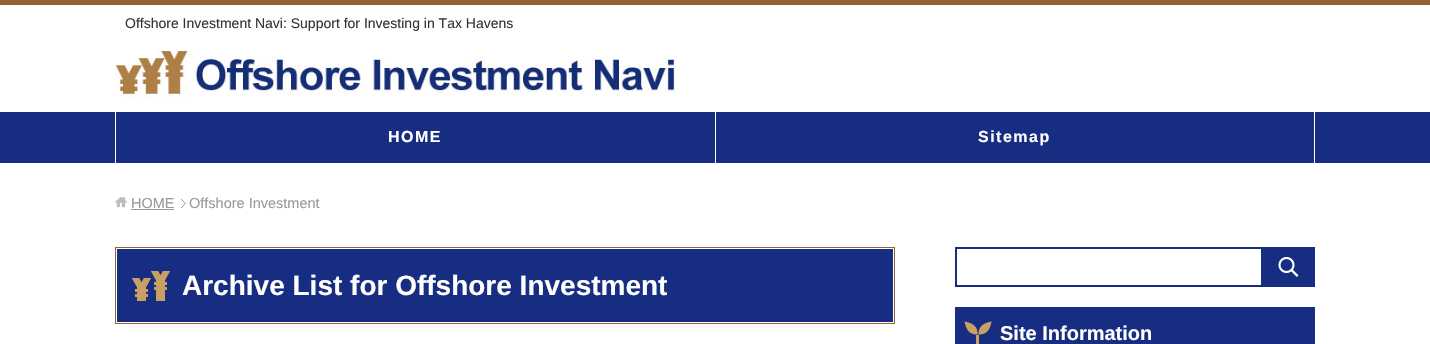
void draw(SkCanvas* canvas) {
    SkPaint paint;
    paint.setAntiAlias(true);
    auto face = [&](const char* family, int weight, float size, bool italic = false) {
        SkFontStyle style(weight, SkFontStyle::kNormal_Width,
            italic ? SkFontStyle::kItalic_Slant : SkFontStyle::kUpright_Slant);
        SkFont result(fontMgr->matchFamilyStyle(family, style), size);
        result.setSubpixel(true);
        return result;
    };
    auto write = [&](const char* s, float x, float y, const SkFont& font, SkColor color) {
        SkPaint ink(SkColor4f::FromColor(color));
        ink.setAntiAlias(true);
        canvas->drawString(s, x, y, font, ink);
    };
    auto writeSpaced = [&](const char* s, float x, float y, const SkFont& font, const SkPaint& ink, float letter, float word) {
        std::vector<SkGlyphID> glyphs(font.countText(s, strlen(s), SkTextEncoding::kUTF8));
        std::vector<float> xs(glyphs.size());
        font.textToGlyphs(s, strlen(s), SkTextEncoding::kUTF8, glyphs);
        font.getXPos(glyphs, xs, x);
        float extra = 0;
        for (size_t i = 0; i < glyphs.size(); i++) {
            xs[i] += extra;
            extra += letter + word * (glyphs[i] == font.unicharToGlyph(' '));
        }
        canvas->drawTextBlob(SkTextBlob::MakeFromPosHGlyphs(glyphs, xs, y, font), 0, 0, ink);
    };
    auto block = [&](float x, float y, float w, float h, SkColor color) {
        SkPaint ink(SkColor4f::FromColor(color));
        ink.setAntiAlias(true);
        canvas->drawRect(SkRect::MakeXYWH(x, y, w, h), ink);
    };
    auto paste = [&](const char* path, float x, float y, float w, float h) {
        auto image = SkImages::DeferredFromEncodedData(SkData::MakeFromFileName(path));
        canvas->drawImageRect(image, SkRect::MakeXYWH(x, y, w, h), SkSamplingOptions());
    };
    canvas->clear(SK_ColorWHITE);
    block(0, 0, 1430, 5, SkColorSetRGB(149, 97, 52));
    auto kFont1 = face("Liberation Sans", 400, 14);
    write("Offshore Investment Navi: Support for Investing in Tax Havens", 125, 28, kFont1, SkColorSetRGB(51, 51, 51));
    paste("pic1.png", 115, 50, 560, 50);
    block(0, 112, 1430, 51, SkColorSetRGB(23, 45, 129));
    block(115, 112, 1, 51, SK_ColorWHITE);
    block(715, 112, 1, 51, SK_ColorWHITE);
    auto kFont2 = face("Liberation Sans", 700, 16);
    paint.setColor(SK_ColorWHITE);
    writeSpaced("HOME", 388, 142, kFont2, paint, 1.5f, 0);
    block(1314, 112, 1, 51, SK_ColorWHITE);
    writeSpaced("Sitemap", 978, 142, kFont2, paint, 1.5f, 0);
    paste("pic2.png", 181, 199, 5, 9);
    paste("pic3.png", 115, 197, 12, 11);
    auto kFont3 = face("Liberation Sans", 400, 14.5f);
    write("HOME", 131, 208, kFont3, SkColorSetRGB(153, 153, 153));
    block(131, 209, 43, 1, SkColorSetRGB(153, 153, 153));
    write("Offshore Investment", 189, 208, kFont3, SkColorSetRGB(153, 153, 153));
    paint.setStyle(SkPaint::kStroke_Style);
    paint.setStrokeWidth(1);
    paint.setColor(SkColorSetRGB(149, 97, 52));
    canvas->drawRect(SkRect::MakeXYWH(115.5f, 247.5f, 779, 76), paint);
    block(117, 249, 776, 73, SkColorSetRGB(23, 45, 129));
    paste("pic4.png", 132, 271, 38, 30);
    auto kFont4 = face("Liberation Sans", 700, 28);
    write("Archive List for Offshore Investment", 182, 295, kFont4, SK_ColorWHITE);
    block(955, 247, 306, 2, SkColorSetRGB(23, 45, 129));
    block(955, 285, 306, 2, SkColorSetRGB(23, 45, 129));
    block(955, 247, 2, 40, SkColorSetRGB(23, 45, 129));
    block(1261, 247, 54, 40, SkColorSetRGB(23, 45, 129));
    paste("pic5.png", 1278, 257, 21, 20);
    block(955, 307, 360, 37, SkColorSetRGB(23, 45, 129));
    paste("pic6.png", 964, 321, 28, 23);
    auto kFont5 = face("Liberation Sans", 700, 20);
    write("Site Information", 1000, 340, kFont5, SK_ColorWHITE);
}
